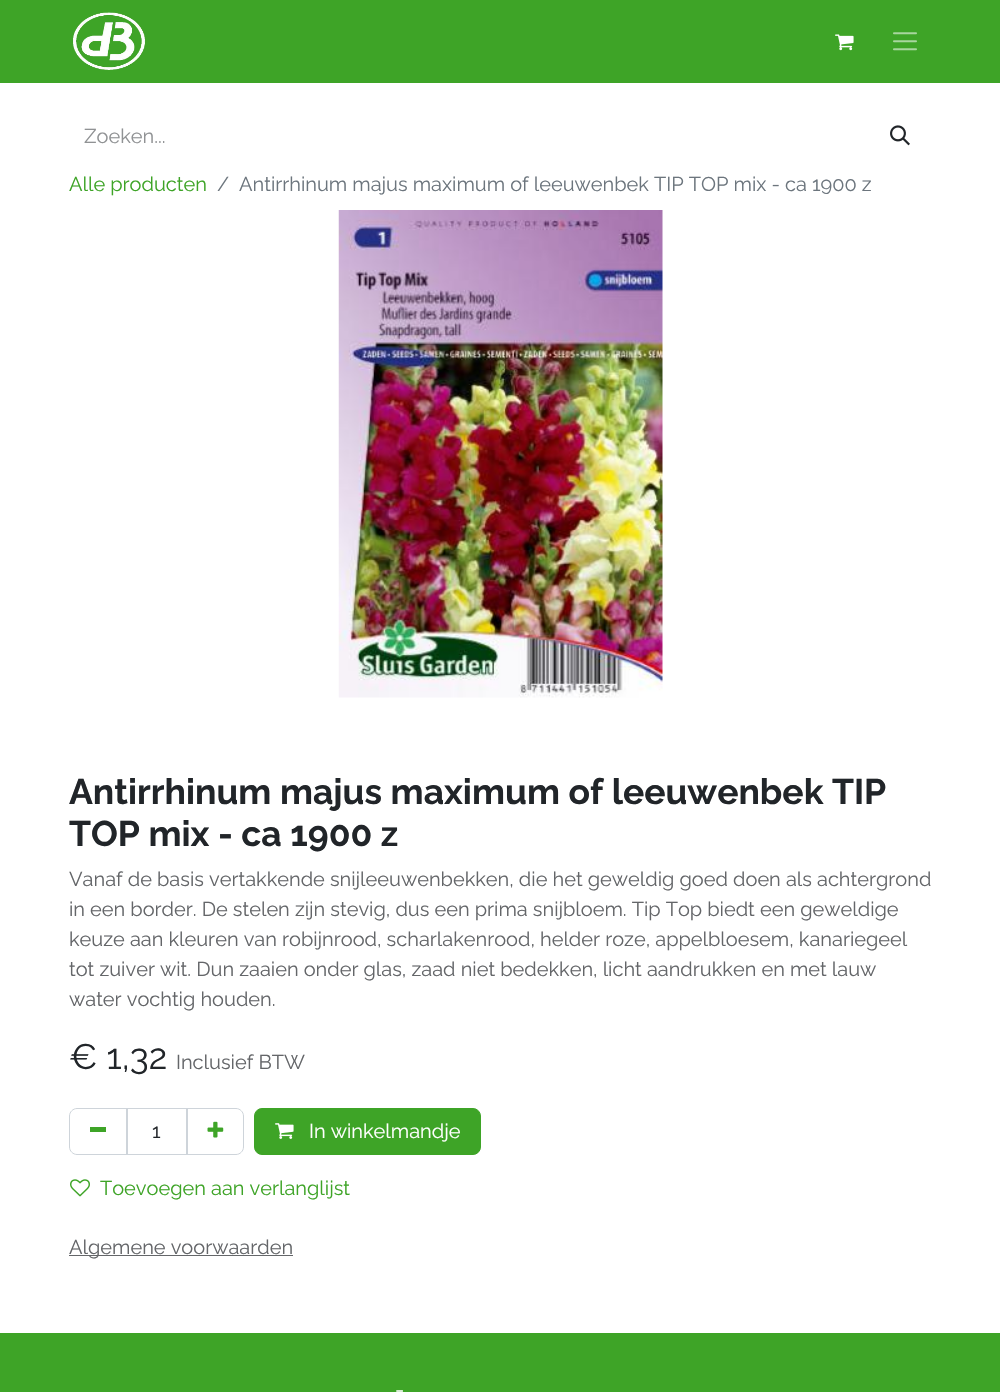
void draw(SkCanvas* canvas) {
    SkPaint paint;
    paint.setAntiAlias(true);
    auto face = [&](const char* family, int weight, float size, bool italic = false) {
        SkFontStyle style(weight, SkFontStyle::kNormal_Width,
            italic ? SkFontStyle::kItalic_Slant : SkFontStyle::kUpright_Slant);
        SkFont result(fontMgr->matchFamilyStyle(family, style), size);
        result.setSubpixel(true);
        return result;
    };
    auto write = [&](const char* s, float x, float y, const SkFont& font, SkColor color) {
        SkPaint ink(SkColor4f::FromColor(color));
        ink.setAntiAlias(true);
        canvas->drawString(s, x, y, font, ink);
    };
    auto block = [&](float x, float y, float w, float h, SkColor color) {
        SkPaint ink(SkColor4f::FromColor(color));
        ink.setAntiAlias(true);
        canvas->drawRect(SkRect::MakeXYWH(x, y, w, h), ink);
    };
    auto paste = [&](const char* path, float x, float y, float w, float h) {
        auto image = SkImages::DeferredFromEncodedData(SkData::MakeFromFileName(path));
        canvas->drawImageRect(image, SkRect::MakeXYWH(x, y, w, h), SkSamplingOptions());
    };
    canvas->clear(SK_ColorWHITE);
    block(0, 0, 1000, 83, SkColorSetRGB(62, 164, 39));
    paste("pic1.png", 72, 12, 74, 58);
    paste("pic2.png", 835, 34, 19, 17);
    paste("pic3.png", 893, 32, 24, 19);
    auto kFont1 = face("Raleway", 400, 20);
    write("Zoeken...", 84, 143, kFont1, SkColorSetRGB(144, 146, 148));
    paste("pic4.png", 890, 125, 20, 21);
    write("Alle producten", 69, 191, kFont1, SkColorSetRGB(62, 164, 39));
    write("/", 217, 191, kFont1, SkColorSetRGB(108, 117, 125));
    write("Antirrhinum majus maximum of leeuwenbek TIP TOP mix - ca 1900 z", 239, 191, kFont1, SkColorSetRGB(108, 117, 125));
    paste("pic5.png", 338, 210, 325, 488);
    auto kFont2 = face("Raleway", 700, 35.5f);
    write("Antirrhinum majus maximum of leeuwenbek TIP", 69, 804, kFont2, SkColorSetRGB(33, 37, 41));
    write("TOP mix - ca 1900 z", 69, 846, kFont2, SkColorSetRGB(33, 37, 41));
    write("Vanaf de basis vertakkende snijleeuwenbekken, die het geweldig goed doen als achtergrond", 69, 886, kFont1, SkColorSetRGB(100, 102, 105));
    write("in een border. De stelen zijn stevig, dus een prima snijbloem. Tip Top biedt een geweldige", 69, 916, kFont1, SkColorSetRGB(100, 102, 105));
    write("keuze aan kleuren van robijnrood, scharlakenrood, helder roze, appelbloesem, kanariegeel", 69, 946, kFont1, SkColorSetRGB(100, 102, 105));
    write("tot zuiver wit. Dun zaaien onder glas, zaad niet bedekken, licht aandrukken en met lauw", 69, 976, kFont1, SkColorSetRGB(100, 102, 105));
    write("water vochtig houden.", 69, 1006, kFont1, SkColorSetRGB(100, 102, 105));
    auto kFont3 = face("Raleway", 400, 35.5f);
    write("€ 1,32", 69, 1069, kFont3, SkColorSetRGB(33, 37, 41));
    write("Inclusief BTW", 176, 1069, kFont1, SkColorSetRGB(100, 102, 105));
    paint.setStyle(SkPaint::kStroke_Style);
    paint.setStrokeWidth(1);
    paint.setColor(SkColorSetRGB(206, 212, 218));
    canvas->drawRect(SkRect::MakeXYWH(126.5f, 1108.5f, 61, 46), paint);
    canvas->drawPath(SkPathBuilder().moveTo(77, 1108.5f).lineTo(127.5f, 1108.5f).lineTo(127.5f, 1154.5f).lineTo(77, 1154.5f).cubicTo(73, 1154.5f, 69.5f, 1151, 69.5f, 1147).lineTo(69.5f, 1116).cubicTo(69.5f, 1112, 73, 1108.5f, 77, 1108.5f).close().detach(), paint);
    block(90, 1127, 16, 5, SkColorSetRGB(62, 164, 39));
    write("1", 152, 1138, kFont1, SkColorSetRGB(33, 37, 41));
    canvas->drawPath(SkPathBuilder().moveTo(186.5f, 1108.5f).lineTo(236, 1108.5f).cubicTo(240, 1108.5f, 243.5f, 1112, 243.5f, 1116).lineTo(243.5f, 1147).cubicTo(243.5f, 1151, 240, 1154.5f, 236, 1154.5f).lineTo(186.5f, 1154.5f).close().detach(), paint);
    paste("pic6.png", 207, 1121, 17, 17);
    paint.setStyle(SkPaint::kFill_Style);
    paint.setColor(SkColorSetRGB(62, 164, 39));
    canvas->drawRoundRect(SkRect::MakeXYWH(254.5f, 1108.5f, 226, 46), 7.5f, 7.5f, paint);
    paint.setStyle(SkPaint::kStroke_Style);
    canvas->drawRoundRect(SkRect::MakeXYWH(254.5f, 1108.5f, 226, 46), 7.5f, 7.5f, paint);
    paste("pic7.png", 275, 1123, 19, 16);
    write("In winkelmandje", 309, 1138, kFont1, SK_ColorWHITE);
    paste("pic8.png", 70, 1179, 20, 18);
    write("Toevoegen aan verlanglijst", 100, 1195, kFont1, SkColorSetRGB(62, 164, 39));
    block(69, 1255, 224, 1, SkColorSetRGB(100, 102, 105));
    write("Algemene voorwaarden", 69, 1254, kFont1, SkColorSetRGB(100, 102, 105));
    block(0, 1333, 1000, 59, SkColorSetRGB(62, 164, 39));
    auto kFont4 = face("Raleway", 400, 22);
    write("-", 395, 1397, kFont4, SK_ColorWHITE);
}
